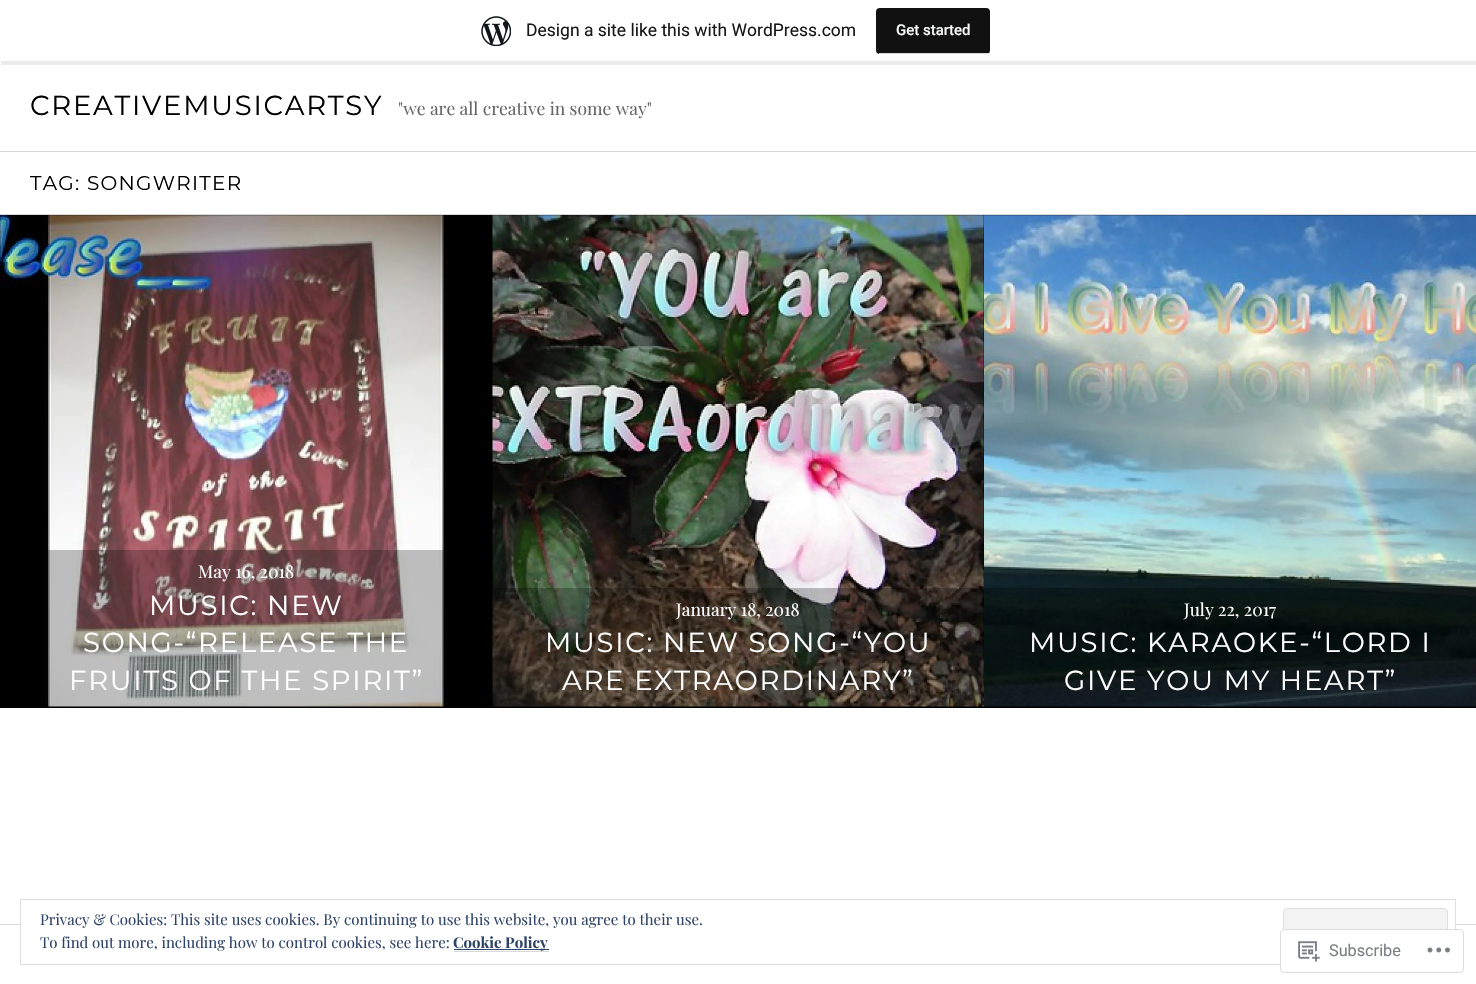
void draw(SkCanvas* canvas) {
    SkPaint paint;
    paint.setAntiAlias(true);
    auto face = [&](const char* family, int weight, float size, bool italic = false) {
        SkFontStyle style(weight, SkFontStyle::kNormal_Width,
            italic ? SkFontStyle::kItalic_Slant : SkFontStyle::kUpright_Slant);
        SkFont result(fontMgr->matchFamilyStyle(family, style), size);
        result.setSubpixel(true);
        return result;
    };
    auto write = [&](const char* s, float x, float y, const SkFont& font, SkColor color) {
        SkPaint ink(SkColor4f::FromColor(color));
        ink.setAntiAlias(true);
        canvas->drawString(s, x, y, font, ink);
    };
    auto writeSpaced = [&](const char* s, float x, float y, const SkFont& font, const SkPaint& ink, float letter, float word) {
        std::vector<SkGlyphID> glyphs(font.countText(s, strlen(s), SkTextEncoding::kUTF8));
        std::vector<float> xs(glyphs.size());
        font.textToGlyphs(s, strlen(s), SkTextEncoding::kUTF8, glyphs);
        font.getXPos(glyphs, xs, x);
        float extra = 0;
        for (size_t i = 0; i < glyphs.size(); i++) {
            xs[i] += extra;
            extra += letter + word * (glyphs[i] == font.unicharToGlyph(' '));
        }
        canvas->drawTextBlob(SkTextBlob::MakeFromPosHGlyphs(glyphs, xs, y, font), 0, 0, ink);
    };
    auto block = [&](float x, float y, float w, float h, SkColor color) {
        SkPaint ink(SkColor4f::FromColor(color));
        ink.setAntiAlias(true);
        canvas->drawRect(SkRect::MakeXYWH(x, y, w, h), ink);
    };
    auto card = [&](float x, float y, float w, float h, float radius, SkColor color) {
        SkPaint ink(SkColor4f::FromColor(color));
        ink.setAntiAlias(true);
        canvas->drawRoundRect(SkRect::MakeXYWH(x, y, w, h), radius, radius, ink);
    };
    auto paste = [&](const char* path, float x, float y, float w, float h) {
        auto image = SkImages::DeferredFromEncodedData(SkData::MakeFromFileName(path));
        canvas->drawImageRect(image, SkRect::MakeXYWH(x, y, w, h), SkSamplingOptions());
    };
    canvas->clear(SK_ColorWHITE);
    paint.setColor(SkColorSetARGB(20, 0, 0, 0));
    canvas->drawPath(SkPathBuilder().moveTo(1, 61).lineTo(1, 65).lineTo(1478, 65).lineTo(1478, 4).lineTo(1476, 4).lineTo(1476, 61).close().detach(), paint);
    paste("pic1.png", 481, 16, 30, 30);
    auto kFont1 = face("Roboto", 400, 17.5f);
    write("Design a site like this with WordPress.com", 526, 36, kFont1, SkColorSetRGB(23, 23, 23));
    card(876, 8, 114, 46, 4, SkColorSetRGB(17, 17, 17));
    block(879, 53, 110, 1, SkColorSetRGB(217, 217, 217));
    auto kFont2 = face("Roboto", 500, 15);
    write("Get started", 896, 35, kFont2, SkColorSetRGB(246, 247, 247));
    block(0, 151, 1476, 1, SkColorSetRGB(217, 217, 217));
    auto kFont3 = face("Montserrat", 400, 27.5f);
    paint.setColor(SK_ColorBLACK);
    writeSpaced("CREATIVEMUSICARTSY", 30, 115, kFont3, paint, 1.75f, 0);
    auto kFont4 = face("Playfair Display", 400, 17.5f);
    write("\"we are all creative in some way\"", 398, 115, kFont4, SkColorSetRGB(102, 102, 102));
    block(0, 214, 1476, 1, SkColorSetRGB(217, 217, 217));
    auto kFont5 = face("Montserrat", 400, 20);
    writeSpaced("TAG: SONGWRITER", 30, 190, kFont5, paint, 1.25f, 0);
    block(0, 215, 1476, 493, SK_ColorBLACK);
    paste("pic2.png", 0, 215, 449, 492);
    paste("pic3.png", 492, 215, 492, 492);
    block(48, 550, 445, 157, SkColorSetARGB(64, 0, 0, 0));
    write("May 16, 2018", 198, 578, kFont4, SK_ColorWHITE);
    paint.setColor(SK_ColorWHITE);
    writeSpaced("MUSIC: NEW", 149, 615, kFont3, paint, 1.75f, 0);
    writeSpaced("SONG-“RELEASE THE", 83, 652, kFont3, paint, 1.75f, 0);
    writeSpaced("FRUITS OF THE SPIRIT”", 69, 690, kFont3, paint, 1.75f, 0);
    block(493, 588, 491, 119, SkColorSetARGB(64, 0, 0, 0));
    write("January 18, 2018", 676, 616, kFont4, SK_ColorWHITE);
    writeSpaced("MUSIC: NEW SONG-“YOU", 545, 652, kFont3, paint, 1.75f, 0);
    writeSpaced("ARE EXTRAORDINARY”", 562, 690, kFont3, paint, 1.75f, 0);
    paste("pic4.png", 984, 215, 492, 492);
    block(984, 588, 492, 119, SkColorSetARGB(64, 0, 0, 0));
    write("July 22, 2017", 1184, 616, kFont4, SK_ColorWHITE);
    writeSpaced("MUSIC: KARAOKE-“LORD I", 1029, 652, kFont3, paint, 1.75f, 0);
    writeSpaced("GIVE YOU MY HEART”", 1064, 690, kFont3, paint, 1.75f, 0);
    block(0, 924, 1476, 1, SkColorSetRGB(217, 217, 217));
    block(21, 924, 1434, 1, SK_ColorWHITE);
    paint.setStyle(SkPaint::kStroke_Style);
    paint.setStrokeWidth(1);
    paint.setColor(SkColorSetRGB(222, 222, 222));
    canvas->drawRect(SkRect::MakeXYWH(20.5f, 899.5f, 1435, 65), paint);
    auto kFont6 = face("Playfair Display", 400, 15);
    write("Privacy & Cookies: This site uses cookies. By continuing to use this website, you agree to their use.", 40, 925, kFont6, SkColorSetRGB(46, 68, 103));
    paint.setStyle(SkPaint::kFill_Style);
    paint.setColor(SkColorSetRGB(243, 243, 243));
    canvas->drawRoundRect(SkRect::MakeXYWH(1283.5f, 908.5f, 164, 47), 3.5f, 3.5f, paint);
    paint.setStyle(SkPaint::kStroke_Style);
    paint.setColor(SkColorSetRGB(222, 222, 222));
    canvas->drawRoundRect(SkRect::MakeXYWH(1283.5f, 908.5f, 164, 47), 3.5f, 3.5f, paint);
    write("To find out more, including how to control cookies, see here:", 40, 948, kFont6, SkColorSetRGB(46, 68, 103));
    block(454, 949, 95, 1, SkColorSetRGB(46, 68, 103));
    auto kFont7 = face("Playfair Display", 700, 15);
    write("Cookie Policy", 453, 948, kFont7, SkColorSetRGB(46, 68, 103));
    block(454, 951, 95, 1, SkColorSetRGB(217, 217, 217));
    card(1280, 929, 184, 44, 4, SkColorSetARGB(250, 255, 255, 255));
    paint.setColor(SkColorSetARGB(250, 220, 220, 222));
    canvas->drawRoundRect(SkRect::MakeXYWH(1280.5f, 929.5f, 183, 43), 3.5f, 3.5f, paint);
    paste("pic5.png", 1298, 941, 22, 21);
    auto kFont8 = face("Roboto", 400, 16.25f);
    write("Subscribe", 1329, 956, kFont8, SkColorSetRGB(123, 127, 132));
    paste("pic6.png", 1427, 947, 23, 6);
}
